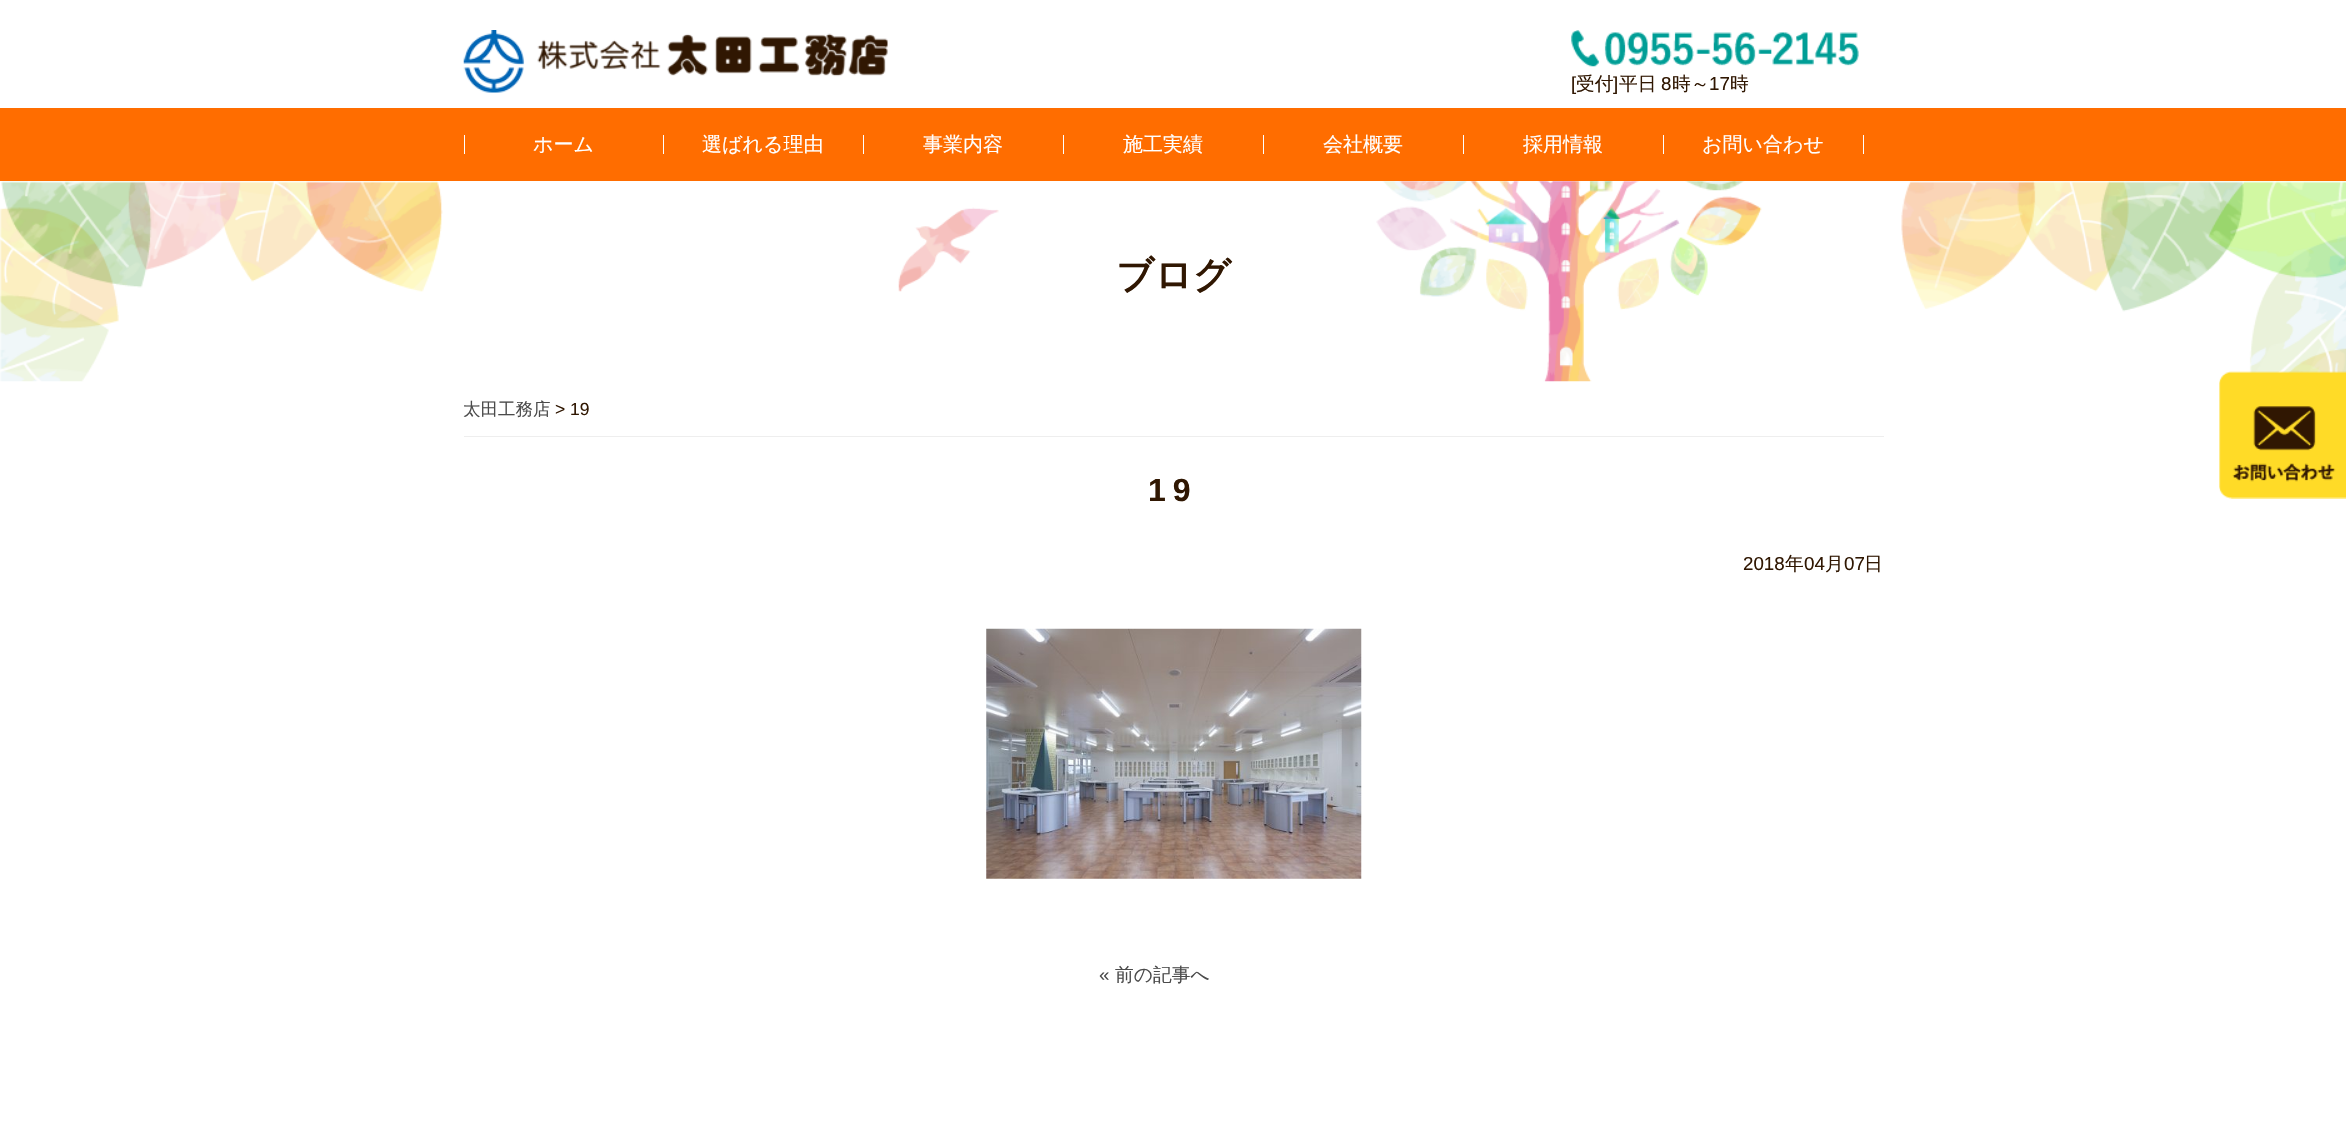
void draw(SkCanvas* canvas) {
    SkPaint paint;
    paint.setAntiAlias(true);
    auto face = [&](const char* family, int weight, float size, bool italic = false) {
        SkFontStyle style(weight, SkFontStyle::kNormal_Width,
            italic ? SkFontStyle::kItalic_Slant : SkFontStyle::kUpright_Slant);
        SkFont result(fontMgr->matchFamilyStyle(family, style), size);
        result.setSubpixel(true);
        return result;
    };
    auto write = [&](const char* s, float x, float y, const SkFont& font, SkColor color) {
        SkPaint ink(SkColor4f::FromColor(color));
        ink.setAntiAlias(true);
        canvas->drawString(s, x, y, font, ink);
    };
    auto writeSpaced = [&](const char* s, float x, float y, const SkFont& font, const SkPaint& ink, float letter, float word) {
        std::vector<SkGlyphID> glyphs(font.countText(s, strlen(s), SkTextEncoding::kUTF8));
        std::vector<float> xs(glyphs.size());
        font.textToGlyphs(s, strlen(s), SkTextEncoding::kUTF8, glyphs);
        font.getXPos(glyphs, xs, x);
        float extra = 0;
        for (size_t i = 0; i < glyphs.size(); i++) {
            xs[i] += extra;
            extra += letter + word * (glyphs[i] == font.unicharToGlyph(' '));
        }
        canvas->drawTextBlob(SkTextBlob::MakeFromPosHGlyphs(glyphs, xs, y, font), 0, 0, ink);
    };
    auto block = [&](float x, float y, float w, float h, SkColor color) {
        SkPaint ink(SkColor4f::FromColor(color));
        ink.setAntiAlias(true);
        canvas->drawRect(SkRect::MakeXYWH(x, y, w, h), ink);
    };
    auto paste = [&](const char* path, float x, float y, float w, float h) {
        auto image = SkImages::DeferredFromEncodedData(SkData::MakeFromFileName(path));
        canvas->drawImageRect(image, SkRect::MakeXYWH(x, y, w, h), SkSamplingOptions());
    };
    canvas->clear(SK_ColorWHITE);
    paste("pic1.png", 463, 30, 425, 63);
    paste("pic2.png", 1571, 30, 288, 37);
    auto kFont1 = face("Liberation Sans", 400, 18.75f);
    write("[", 1571, 90, kFont1, SkColorSetRGB(48, 23, 2));
    auto kFont2 = face("WenQuanYi Zen Hei", 500, 18.75f);
    write("受付", 1576, 90, kFont2, SkColorSetRGB(48, 23, 2));
    write("]", 1613, 90, kFont1, SkColorSetRGB(48, 23, 2));
    write("平日", 1619, 90, kFont2, SkColorSetRGB(48, 23, 2));
    write("8", 1661, 90, kFont1, SkColorSetRGB(48, 23, 2));
    write("時～", 1672, 90, kFont2, SkColorSetRGB(48, 23, 2));
    write("17", 1709, 90, kFont1, SkColorSetRGB(48, 23, 2));
    write("時", 1730, 90, kFont2, SkColorSetRGB(48, 23, 2));
    block(0, 108, 2346, 73, SkColorSetRGB(255, 109, 0));
    block(663, 135, 1, 19, SK_ColorWHITE);
    block(464, 135, 1, 19, SK_ColorWHITE);
    auto kFont3 = face("WenQuanYi Zen Hei", 500, 20);
    write("ホーム", 533, 151, kFont3, SK_ColorWHITE);
    block(863, 135, 1, 19, SK_ColorWHITE);
    write("選ばれる理由", 702, 151, kFont3, SK_ColorWHITE);
    block(1063, 135, 1, 19, SK_ColorWHITE);
    write("事業内容", 923, 151, kFont3, SK_ColorWHITE);
    block(1263, 135, 1, 19, SK_ColorWHITE);
    write("施工実績", 1123, 151, kFont3, SK_ColorWHITE);
    block(1463, 135, 1, 19, SK_ColorWHITE);
    write("会社概要", 1323, 151, kFont3, SK_ColorWHITE);
    block(1663, 135, 1, 19, SK_ColorWHITE);
    write("採用情報", 1523, 151, kFont3, SK_ColorWHITE);
    block(1863, 135, 1, 19, SK_ColorWHITE);
    write("お問い合わせ", 1702, 151, kFont3, SK_ColorWHITE);
    paste("pic3.png", 0, 181, 2346, 201);
    auto kFont4 = face("WenQuanYi Zen Hei", 700, 37.5f);
    write("ブログ", 1116, 288, kFont4, SkColorSetRGB(48, 23, 2));
    block(464, 436, 1420, 1, SkColorSetRGB(238, 238, 238));
    auto kFont5 = face("WenQuanYi Zen Hei", 500, 17.5f);
    write("太田工務店", 463, 415, kFont5, SkColorSetRGB(75, 75, 75));
    auto kFont6 = face("Liberation Sans", 400, 17.5f);
    write("> 19", 555, 415, kFont6, SkColorSetRGB(48, 23, 2));
    auto kFont7 = face("Liberation Sans", 700, 32);
    paint.setColor(SkColorSetRGB(48, 23, 2));
    writeSpaced("19", 1148, 501, kFont7, paint, 7, 0);
    write("2018", 1743, 570, kFont1, SkColorSetRGB(48, 23, 2));
    write("年", 1785, 570, kFont2, SkColorSetRGB(48, 23, 2));
    write("04", 1804, 570, kFont1, SkColorSetRGB(48, 23, 2));
    write("月", 1825, 570, kFont2, SkColorSetRGB(48, 23, 2));
    write("07", 1844, 570, kFont1, SkColorSetRGB(48, 23, 2));
    write("日", 1864, 570, kFont2, SkColorSetRGB(48, 23, 2));
    paste("pic4.png", 986, 628, 376, 251);
    write("«", 1099, 981, kFont1, SkColorSetRGB(75, 75, 75));
    write("前の記事へ", 1115, 981, kFont2, SkColorSetRGB(75, 75, 75));
    paste("pic5.png", 2219, 371, 127, 128);
}
